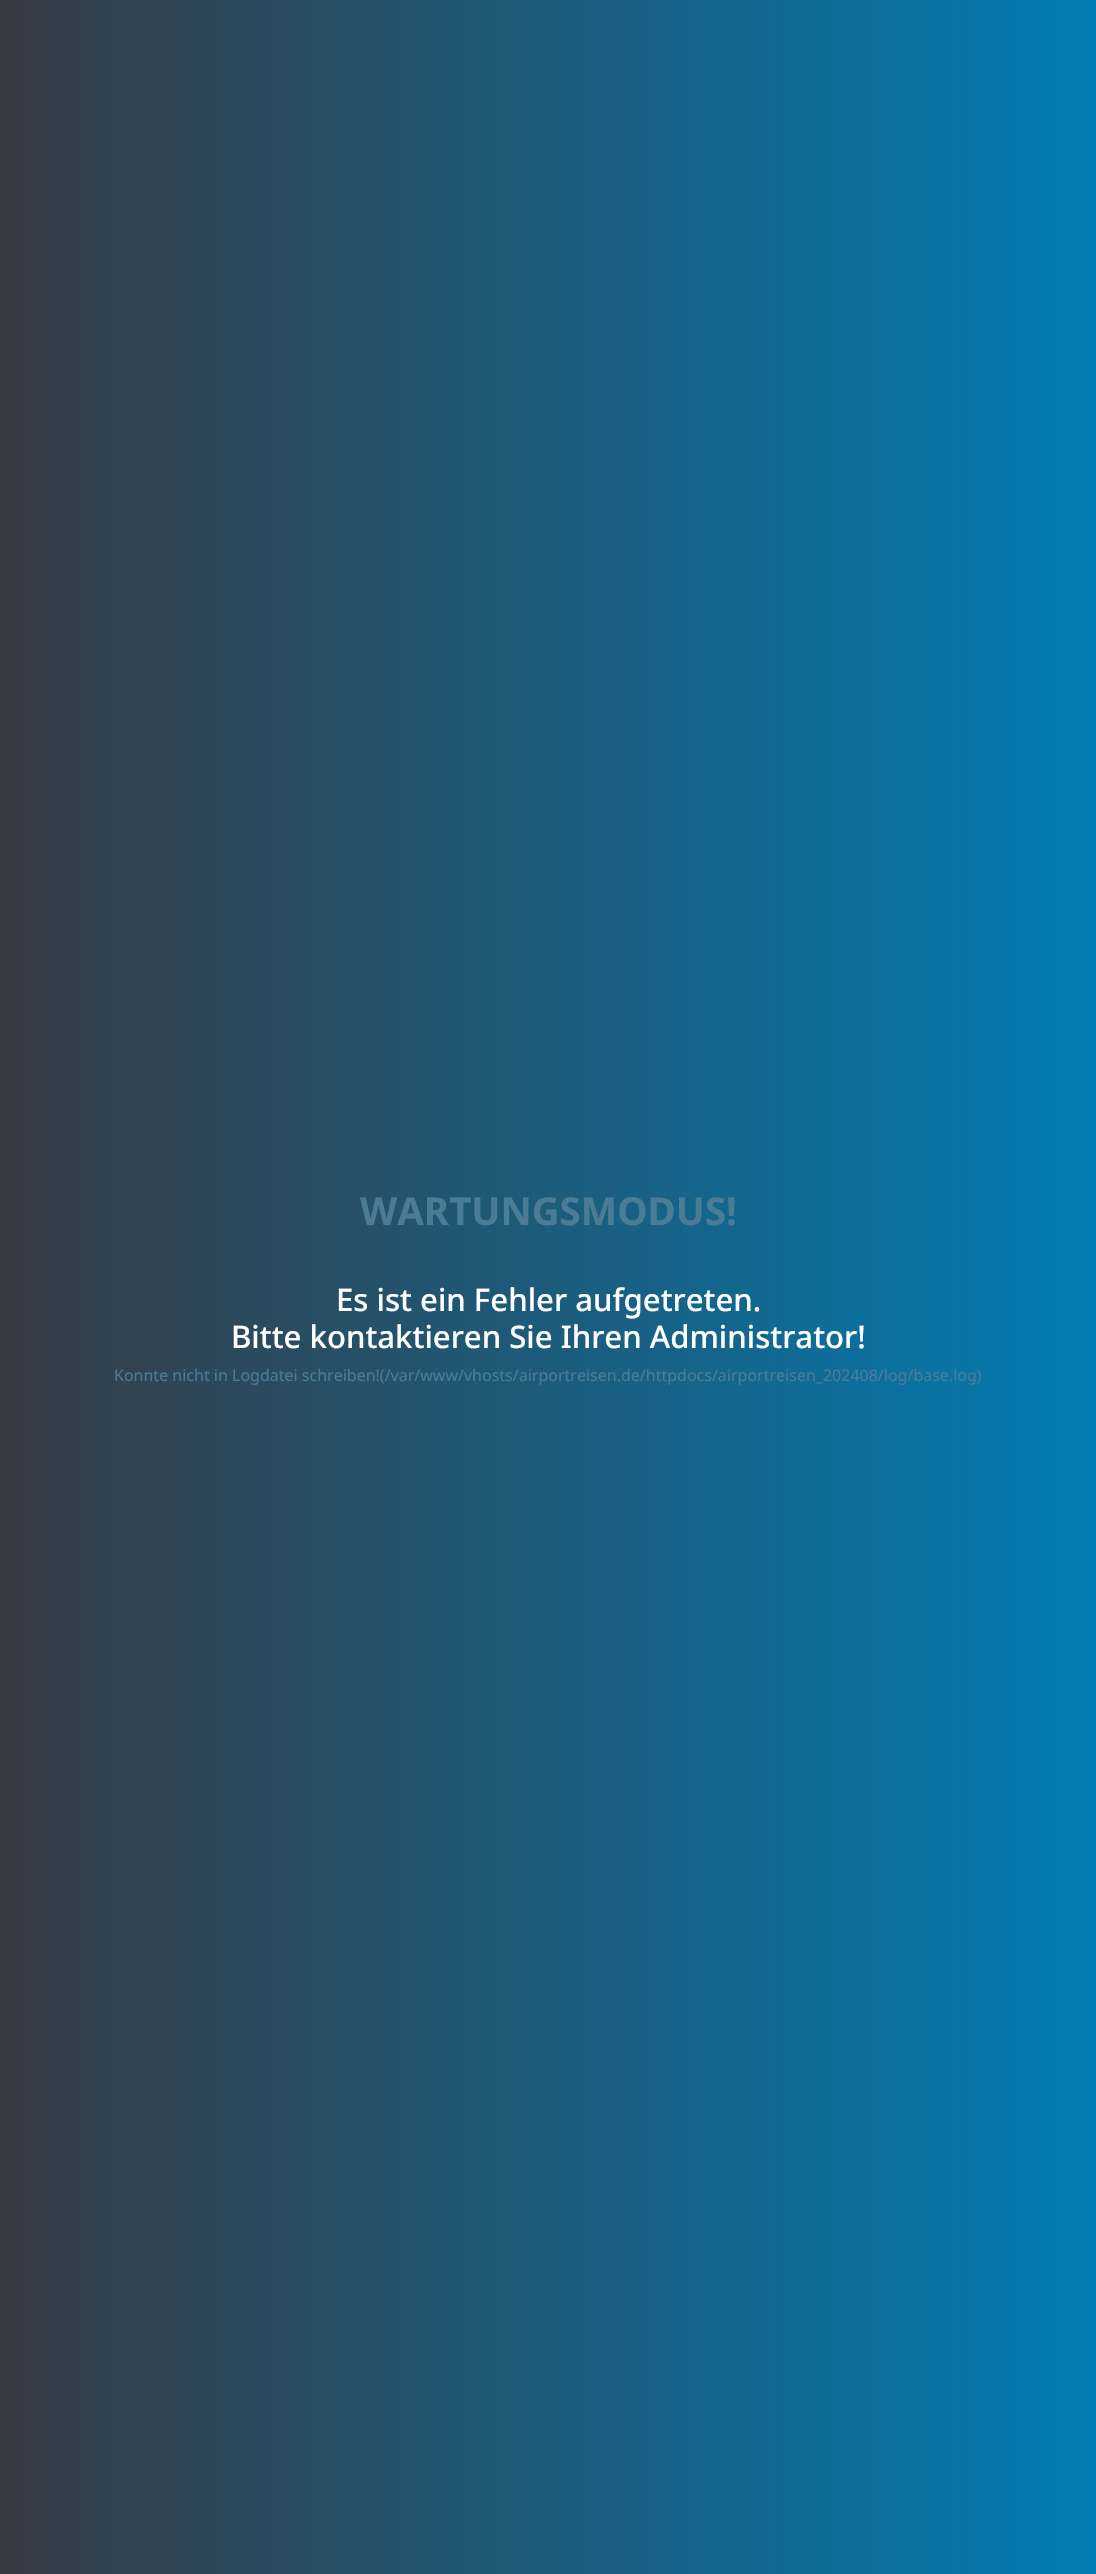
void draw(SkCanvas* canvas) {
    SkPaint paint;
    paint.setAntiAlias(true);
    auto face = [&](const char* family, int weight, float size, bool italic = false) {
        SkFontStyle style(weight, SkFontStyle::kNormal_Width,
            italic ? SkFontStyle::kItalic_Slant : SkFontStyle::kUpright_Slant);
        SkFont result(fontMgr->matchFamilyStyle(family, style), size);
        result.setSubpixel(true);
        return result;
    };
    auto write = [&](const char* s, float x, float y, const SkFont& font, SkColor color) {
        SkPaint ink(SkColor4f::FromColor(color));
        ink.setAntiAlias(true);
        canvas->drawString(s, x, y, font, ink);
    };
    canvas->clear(SK_ColorWHITE);
    {
        const SkColor colors[] = {SkColorSetRGB(55, 59, 68), SkColorSetRGB(2, 124, 179)};
        const float stops[] = {0, 1};
        const SkPoint ends[] = {{0, 1287}, {1096, 1287}};
        paint.setShader(SkGradientShader::MakeLinear(ends, colors, stops, 2, SkTileMode::kClamp));
        paint.setAlpha(255);
    }
    canvas->drawRect(SkRect::MakeXYWH(0, 0, 1096, 2574), paint);
    auto kFont1 = face("Noto Sans", 700, 38.5f);
    write("WARTUNGSMODUS!", 360, 1225, kFont1, SkColorSetRGB(74, 124, 150));
    auto kFont2 = face("Noto Sans", 500, 31.1f);
    write("Es ist ein Fehler aufgetreten.", 336, 1311, kFont2, SK_ColorWHITE);
    write("Bitte kontaktieren Sie Ihren Administrator!", 231, 1348, kFont2, SK_ColorWHITE);
    auto kFont3 = face("Noto Sans", 400, 16);
    write("Konnte nicht in Logdatei schreiben!(/var/www/vhosts/airportreisen.de/httpdocs/airportreisen_202408/log/base.log)", 114, 1381, kFont3, SkColorSetRGB(74, 124, 150));
}
